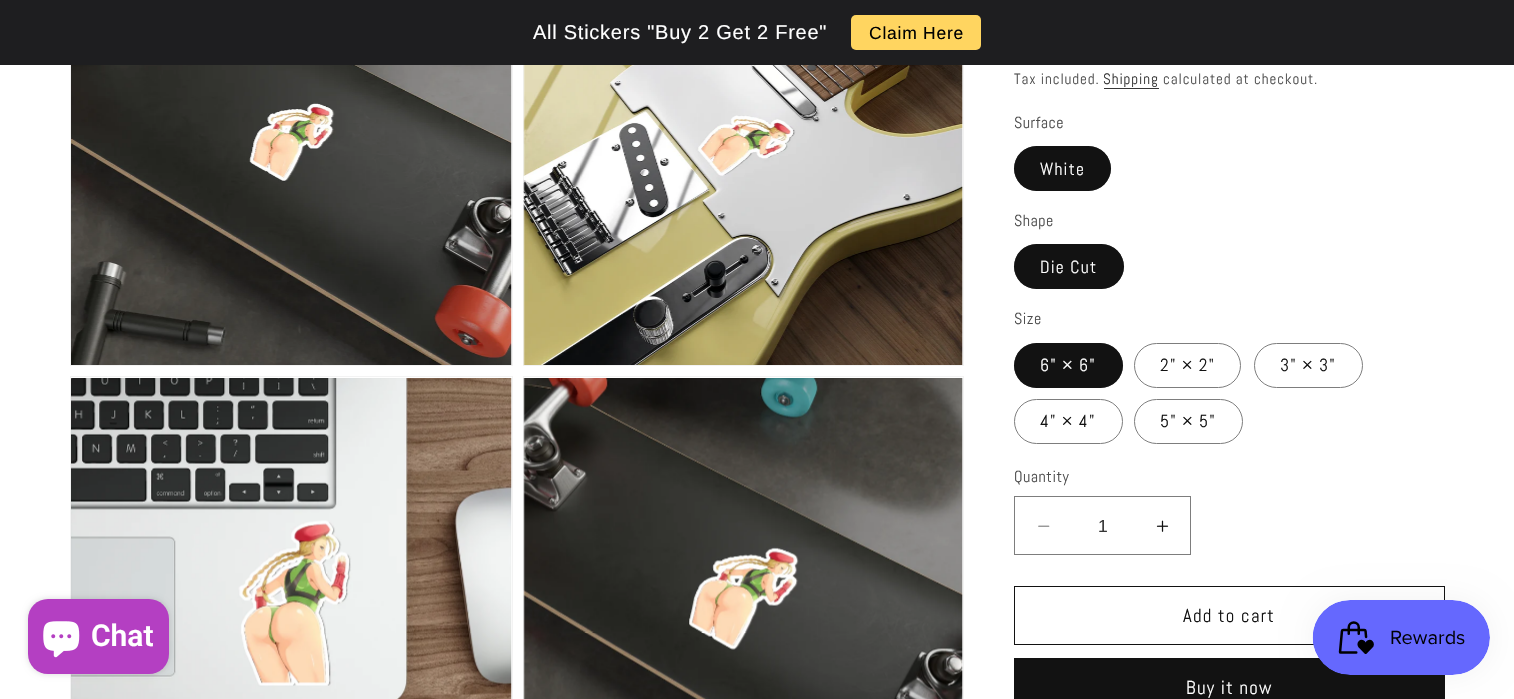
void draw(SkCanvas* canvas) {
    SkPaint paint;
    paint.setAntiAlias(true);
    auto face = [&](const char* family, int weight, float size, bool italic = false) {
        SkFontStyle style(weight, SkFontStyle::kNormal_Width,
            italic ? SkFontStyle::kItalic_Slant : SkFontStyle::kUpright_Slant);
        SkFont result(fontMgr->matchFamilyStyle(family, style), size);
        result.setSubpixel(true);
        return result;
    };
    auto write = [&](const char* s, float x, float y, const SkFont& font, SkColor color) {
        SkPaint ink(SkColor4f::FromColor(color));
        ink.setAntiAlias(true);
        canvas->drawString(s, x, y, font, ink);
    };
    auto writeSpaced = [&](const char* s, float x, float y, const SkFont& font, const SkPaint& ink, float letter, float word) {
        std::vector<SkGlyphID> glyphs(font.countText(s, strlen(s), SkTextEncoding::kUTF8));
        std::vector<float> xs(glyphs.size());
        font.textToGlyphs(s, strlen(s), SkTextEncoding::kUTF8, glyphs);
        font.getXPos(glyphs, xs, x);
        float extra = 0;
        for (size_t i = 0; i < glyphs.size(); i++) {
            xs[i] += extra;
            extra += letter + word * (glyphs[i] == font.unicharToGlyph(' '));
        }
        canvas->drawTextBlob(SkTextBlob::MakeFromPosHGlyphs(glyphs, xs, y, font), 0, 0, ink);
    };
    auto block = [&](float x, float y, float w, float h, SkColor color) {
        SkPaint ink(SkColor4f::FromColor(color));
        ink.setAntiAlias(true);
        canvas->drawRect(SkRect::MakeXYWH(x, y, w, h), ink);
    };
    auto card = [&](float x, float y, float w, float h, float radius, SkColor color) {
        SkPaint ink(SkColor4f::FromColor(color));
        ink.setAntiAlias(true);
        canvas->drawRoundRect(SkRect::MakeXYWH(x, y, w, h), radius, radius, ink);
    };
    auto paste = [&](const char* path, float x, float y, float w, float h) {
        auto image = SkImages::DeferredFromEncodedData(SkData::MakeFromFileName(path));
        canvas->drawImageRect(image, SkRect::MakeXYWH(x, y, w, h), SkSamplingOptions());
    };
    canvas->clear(SK_ColorWHITE);
    paint.setStyle(SkPaint::kStroke_Style);
    paint.setStrokeWidth(1);
    paint.setColor(SkColorSetRGB(243, 243, 243));
    canvas->drawRect(SkRect::MakeXYWH(70.5f, -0.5f, 442, 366), paint);
    canvas->drawRect(SkRect::MakeXYWH(523.5f, -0.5f, 440, 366), paint);
    block(0, 0, 1514, 65, SkColorSetRGB(30, 30, 32));
    auto kFont1 = face("Liberation Sans", 400, 20);
    paint.setStyle(SkPaint::kFill_Style);
    paint.setColor(SK_ColorWHITE);
    writeSpaced("All Stickers \"Buy 2 Get 2 Free\"", 533, 39, kFont1, paint, 0.75f, 0);
    card(851, 15, 130, 35, 5, SkColorSetRGB(255, 213, 96));
    auto kFont2 = face("Liberation Sans", 400, 17.5f);
    paint.setColor(SK_ColorBLACK);
    writeSpaced("Claim Here", 869, 39, kFont2, paint, 0.75f, 0);
    paint.setStyle(SkPaint::kStroke_Style);
    paint.setColor(SkColorSetRGB(243, 243, 243));
    canvas->drawRect(SkRect::MakeXYWH(70.5f, 376.5f, 442, 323), paint);
    paste("pic4.png", 71, 378, 441, 321);
    paint.setStyle(SkPaint::kFill_Style);
    paint.setColor(SkColorSetARGB(38, 0, 0, 0));
    paint.setMaskFilter(SkMaskFilter::MakeBlur(kNormal_SkBlurStyle, 3));
    canvas->drawRoundRect(SkRect::MakeXYWH(28, 599, 141, 75), 20, 20, paint);
    paint.setMaskFilter(nullptr);
    card(28, 599, 141, 75, 20, SkColorSetRGB(180, 63, 194));
    paste("pic1.png", 43, 621, 37, 37);
    auto kFont3 = face("Roboto", 600, 30);
    write("Chat", 91, 646, kFont3, SK_ColorWHITE);
    paste("pic2.png", 71, 65, 441, 300);
    paste("pic3.png", 523, 65, 440, 300);
    paint.setStyle(SkPaint::kStroke_Style);
    paint.setColor(SkColorSetRGB(243, 243, 243));
    canvas->drawRect(SkRect::MakeXYWH(523.5f, 376.5f, 440, 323), paint);
    paste("pic5.png", 523, 378, 440, 321);
    auto kFont4 = face("Abel", 400, 15);
    paint.setStyle(SkPaint::kFill_Style);
    paint.setColor(SkColorSetRGB(77, 77, 77));
    writeSpaced("Tax included.", 1014, 84, kFont4, paint, 0.9f, 0);
    paint.setColor(SkColorSetRGB(54, 54, 54));
    writeSpaced("Shipping", 1103, 84, kFont4, paint, 0.9f, 0);
    block(1104, 88, 55, 1, SkColorSetRGB(54, 54, 54));
    paint.setColor(SkColorSetRGB(77, 77, 77));
    writeSpaced("calculated at checkout.", 1163, 84, kFont4, paint, 0.9f, 0);
    auto kFont5 = face("Abel", 400, 16);
    writeSpaced("Surface", 1014, 128, kFont5, paint, 0.5f, 0);
    card(1014, 146, 97, 45, 22.5f, SkColorSetRGB(18, 18, 18));
    paint.setStyle(SkPaint::kStroke_Style);
    paint.setColor(SkColorSetARGB(140, 18, 18, 18));
    canvas->drawRoundRect(SkRect::MakeXYWH(1014.5f, 146.5f, 96, 44), 22, 22, paint);
    auto kFont6 = face("Abel", 400, 17.5f);
    paint.setStyle(SkPaint::kFill_Style);
    paint.setColor(SK_ColorWHITE);
    writeSpaced("White", 1040, 175, kFont6, paint, 1.25f, 0);
    paint.setColor(SkColorSetRGB(77, 77, 77));
    writeSpaced("Shape", 1014, 226, kFont5, paint, 0.5f, 0);
    card(1014, 244, 110, 45, 22.5f, SkColorSetRGB(18, 18, 18));
    paint.setStyle(SkPaint::kStroke_Style);
    paint.setColor(SkColorSetARGB(140, 18, 18, 18));
    canvas->drawRoundRect(SkRect::MakeXYWH(1014.5f, 244.5f, 109, 44), 22, 22, paint);
    paint.setStyle(SkPaint::kFill_Style);
    paint.setColor(SK_ColorWHITE);
    writeSpaced("Die Cut", 1040, 273, kFont6, paint, 1.25f, 0);
    paint.setColor(SkColorSetRGB(77, 77, 77));
    writeSpaced("Size", 1014, 324, kFont5, paint, 0.5f, 0);
    card(1014, 343, 109, 45, 22.5f, SkColorSetRGB(18, 18, 18));
    paint.setStyle(SkPaint::kStroke_Style);
    paint.setColor(SkColorSetARGB(140, 18, 18, 18));
    canvas->drawRoundRect(SkRect::MakeXYWH(1014.5f, 343.5f, 108, 44), 22, 22, paint);
    paint.setStyle(SkPaint::kFill_Style);
    paint.setColor(SK_ColorWHITE);
    writeSpaced("6\" × 6\"", 1040, 371, kFont6, paint, 1.25f, 0);
    paint.setStyle(SkPaint::kStroke_Style);
    paint.setColor(SkColorSetRGB(125, 125, 125));
    canvas->drawRoundRect(SkRect::MakeXYWH(1134.5f, 343.5f, 106, 44), 22, 22, paint);
    paint.setStyle(SkPaint::kFill_Style);
    paint.setColor(SkColorSetRGB(18, 18, 18));
    writeSpaced("2\" × 2\"", 1160, 371, kFont6, paint, 1.25f, 0);
    paint.setStyle(SkPaint::kStroke_Style);
    paint.setColor(SkColorSetRGB(125, 125, 125));
    canvas->drawRoundRect(SkRect::MakeXYWH(1254.5f, 343.5f, 108, 44), 22, 22, paint);
    paint.setStyle(SkPaint::kFill_Style);
    paint.setColor(SkColorSetRGB(18, 18, 18));
    writeSpaced("3\" × 3\"", 1280, 371, kFont6, paint, 1.25f, 0);
    paint.setStyle(SkPaint::kStroke_Style);
    paint.setColor(SkColorSetRGB(125, 125, 125));
    canvas->drawRoundRect(SkRect::MakeXYWH(1014.5f, 399.5f, 108, 44), 22, 22, paint);
    paint.setStyle(SkPaint::kFill_Style);
    paint.setColor(SkColorSetRGB(18, 18, 18));
    writeSpaced("4\" × 4\"", 1040, 427, kFont6, paint, 1.25f, 0);
    paint.setStyle(SkPaint::kStroke_Style);
    paint.setColor(SkColorSetRGB(125, 125, 125));
    canvas->drawRoundRect(SkRect::MakeXYWH(1134.5f, 399.5f, 108, 44), 22, 22, paint);
    paint.setStyle(SkPaint::kFill_Style);
    paint.setColor(SkColorSetRGB(18, 18, 18));
    writeSpaced("5\" × 5\"", 1160, 427, kFont6, paint, 1.25f, 0);
    paint.setColor(SkColorSetRGB(77, 77, 77));
    writeSpaced("Quantity", 1014, 482, kFont5, paint, 0.5f, 0);
    paste("pic6.png", 1038, 525, 12, 2);
    paste("pic7.png", 1156, 520, 13, 12);
    paint.setStyle(SkPaint::kStroke_Style);
    paint.setColor(SkColorSetRGB(125, 125, 125));
    canvas->drawRect(SkRect::MakeXYWH(1014.5f, 496.5f, 176, 58), paint);
    write("1", 1098, 532, kFont2, SkColorSetRGB(54, 54, 54));
    paint.setColor(SkColorSetRGB(18, 18, 18));
    canvas->drawRect(SkRect::MakeXYWH(1014.5f, 586.5f, 430, 58), paint);
    auto kFont7 = face("Abel", 400, 18.75f);
    paint.setStyle(SkPaint::kFill_Style);
    writeSpaced("Add to cart", 1183, 622, kFont7, paint, 1.25f, 0);
    block(1014, 658, 431, 41, SkColorSetRGB(18, 18, 18));
    paint.setColor(SK_ColorWHITE);
    writeSpaced("Buy it now", 1186, 694, kFont7, paint, 1.25f, 0);
    paint.setColor(SkColorSetARGB(13, 0, 0, 0));
    paint.setMaskFilter(SkMaskFilter::MakeBlur(kNormal_SkBlurStyle, 15.5f));
    canvas->drawRoundRect(SkRect::MakeXYWH(1313, 600, 177, 75), 37.5f, 37.5f, paint);
    paint.setMaskFilter(nullptr);
    paste("pic8.png", 1312, 600, 178, 75);
}
